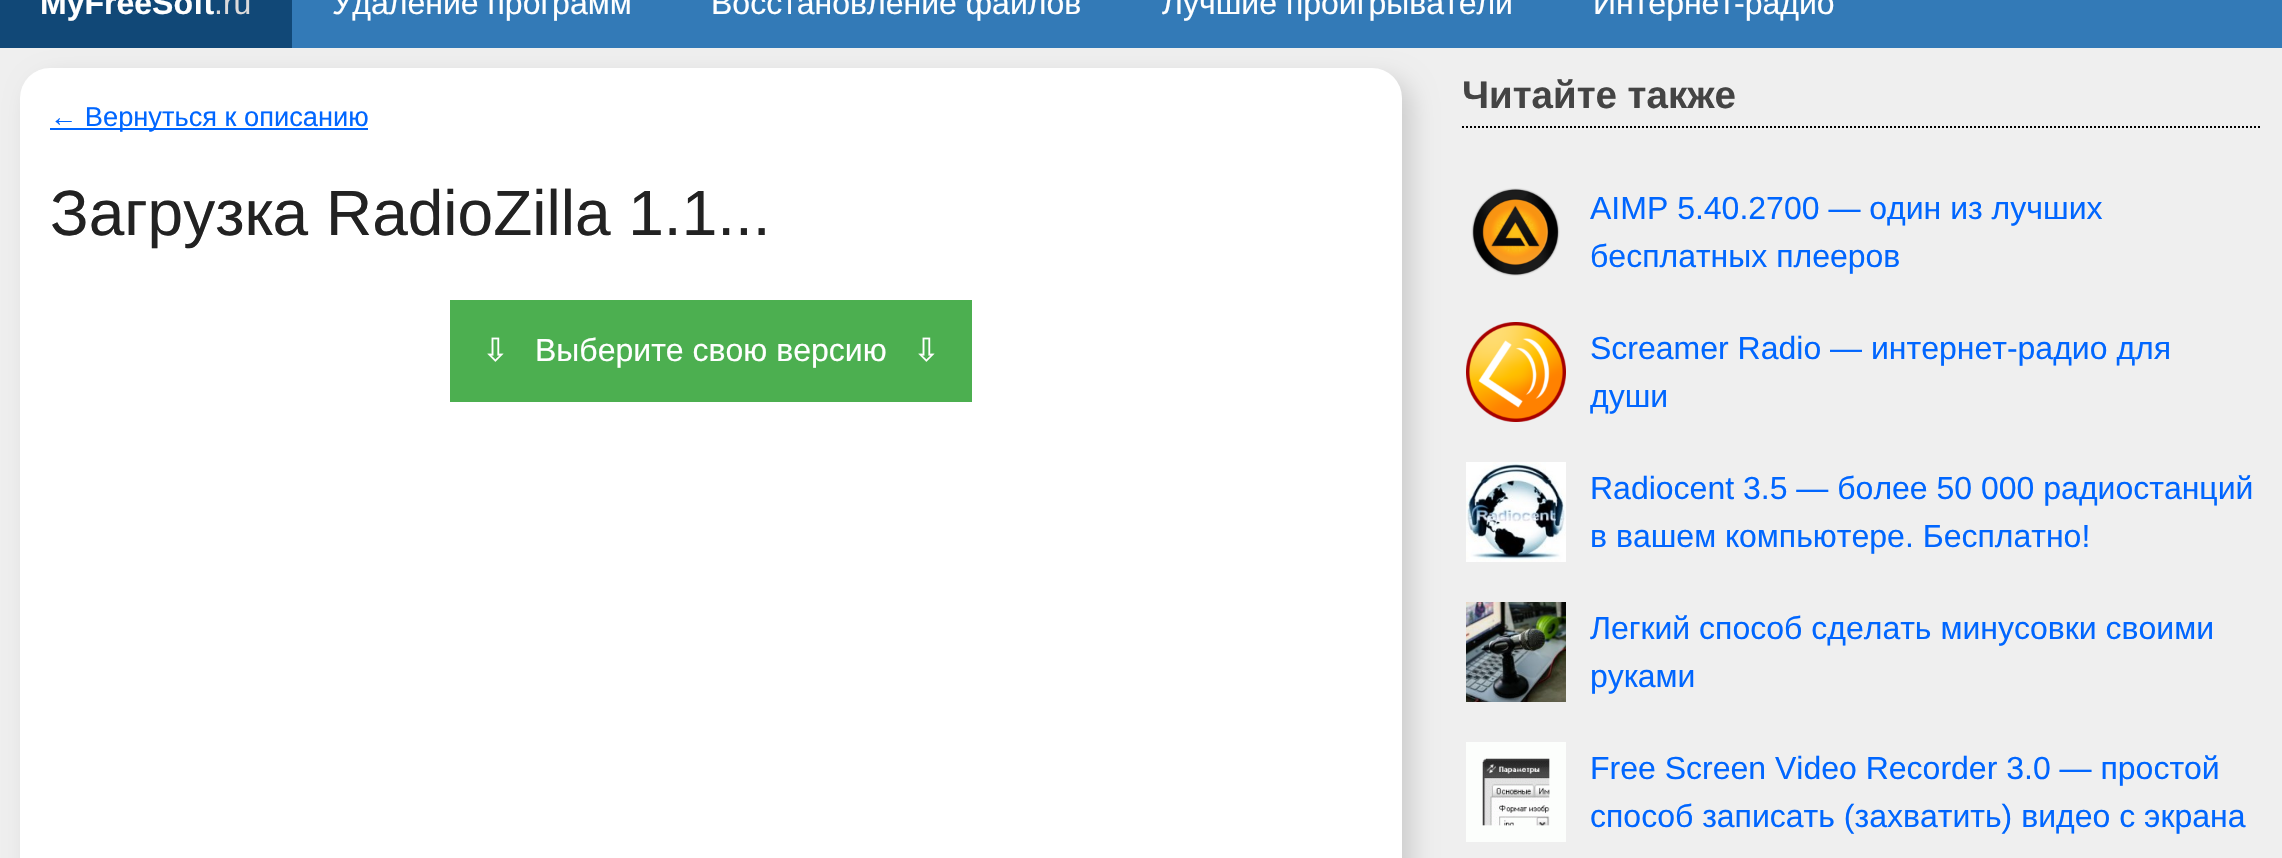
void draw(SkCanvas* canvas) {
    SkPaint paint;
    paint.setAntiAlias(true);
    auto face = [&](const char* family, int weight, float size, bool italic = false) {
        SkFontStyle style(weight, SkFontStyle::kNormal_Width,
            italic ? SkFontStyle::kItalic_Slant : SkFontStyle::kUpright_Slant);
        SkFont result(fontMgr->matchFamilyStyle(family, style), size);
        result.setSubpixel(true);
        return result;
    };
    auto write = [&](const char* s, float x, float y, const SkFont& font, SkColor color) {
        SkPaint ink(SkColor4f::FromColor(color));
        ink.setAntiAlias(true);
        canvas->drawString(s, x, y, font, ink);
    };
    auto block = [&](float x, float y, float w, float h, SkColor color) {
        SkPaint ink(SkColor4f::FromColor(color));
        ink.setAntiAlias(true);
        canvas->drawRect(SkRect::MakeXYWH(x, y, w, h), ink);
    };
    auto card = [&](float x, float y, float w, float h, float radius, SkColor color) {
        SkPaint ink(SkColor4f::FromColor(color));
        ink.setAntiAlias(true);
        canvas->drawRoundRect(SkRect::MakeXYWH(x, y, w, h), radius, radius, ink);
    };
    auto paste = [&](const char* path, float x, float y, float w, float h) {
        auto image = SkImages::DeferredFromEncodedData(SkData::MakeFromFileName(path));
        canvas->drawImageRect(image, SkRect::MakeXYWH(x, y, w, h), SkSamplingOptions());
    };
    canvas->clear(SkColorSetRGB(239, 239, 239));
    block(292, 0, 1990, 48, SkColorSetRGB(51, 122, 183));
    block(0, 0, 292, 48, SkColorSetRGB(17, 72, 119));
    auto kFont1 = face("Liberation Sans", 700, 32);
    write("MyFreeSoft", 40, 14, kFont1, SK_ColorWHITE);
    auto kFont2 = face("Liberation Sans", 400, 32);
    write(".ru", 214, 14, kFont2, SkColorSetRGB(220, 218, 218));
    write("Удаление программ", 332, 14, kFont2, SK_ColorWHITE);
    write("Восстановление файлов", 711, 14, kFont2, SK_ColorWHITE);
    write("Лучшие проигрыватели", 1162, 14, kFont2, SK_ColorWHITE);
    write("Интернет-радио", 1593, 14, kFont2, SK_ColorWHITE);
    paint.setColor(SkColorSetRGB(204, 204, 204));
    paint.setMaskFilter(SkMaskFilter::MakeBlur(kNormal_SkBlurStyle, 12));
    canvas->drawRoundRect(SkRect::MakeXYWH(30, 78, 1382, 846), 30, 30, paint);
    paint.setMaskFilter(nullptr);
    card(20, 68, 1382, 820, 30, SK_ColorWHITE);
    block(50, 128, 318, 2, SkColorSetRGB(0, 102, 255));
    auto kFont3 = face("Liberation Sans", 400, 27.25f);
    write("← Вернуться к описанию", 50, 126, kFont3, SkColorSetRGB(0, 102, 255));
    auto kFont4 = face("Liberation Sans", 400, 64);
    write("Загрузка RadioZilla 1.1...", 50, 235, kFont4, SkColorSetRGB(34, 34, 34));
    block(450, 300, 522, 102, SkColorSetRGB(76, 175, 80));
    auto kFont5 = face("DejaVu Sans", 400, 32);
    write("⇩", 482, 361, kFont5, SK_ColorWHITE);
    write("Выберите свою версию", 535, 361, kFont2, SK_ColorWHITE);
    write("⇩", 913, 361, kFont5, SK_ColorWHITE);
    paint.setStyle(SkPaint::kStroke_Style);
    paint.setStrokeWidth(2);
    paint.setColor(SK_ColorBLACK);
    paint.setPathEffect(SkDashPathEffect::Make({{2, 2}}, 0));
    canvas->drawPath(SkPathBuilder().moveTo(1462, 127).lineTo(2262, 127).detach(), paint);
    paint.setPathEffect(nullptr);
    auto kFont6 = face("Liberation Sans", 700, 38.5f);
    write("Читайте также", 1462, 108, kFont6, SkColorSetRGB(68, 68, 68));
    paste("pic1.png", 1471, 188, 89, 88);
    write("AIMP 5.40.2700 — один из лучших", 1590, 219, kFont2, SkColorSetRGB(0, 102, 255));
    write("бесплатных плееров", 1590, 267, kFont2, SkColorSetRGB(0, 102, 255));
    paste("pic2.png", 1466, 322, 100, 100);
    write("Screamer Radio — интернет-радио для", 1590, 359, kFont2, SkColorSetRGB(0, 102, 255));
    write("души", 1590, 407, kFont2, SkColorSetRGB(0, 102, 255));
    paste("pic3.png", 1466, 462, 100, 100);
    write("Radiocent 3.5 — более 50 000 радиостанций", 1590, 499, kFont2, SkColorSetRGB(0, 102, 255));
    write("в вашем компьютере. Бесплатно!", 1590, 547, kFont2, SkColorSetRGB(0, 102, 255));
    paste("pic4.png", 1466, 602, 100, 100);
    write("Легкий способ сделать минусовки своими", 1590, 639, kFont2, SkColorSetRGB(0, 102, 255));
    write("руками", 1590, 687, kFont2, SkColorSetRGB(0, 102, 255));
    paste("pic5.png", 1466, 742, 100, 100);
    write("Free Screen Video Recorder 3.0 — простой", 1590, 779, kFont2, SkColorSetRGB(0, 102, 255));
    write("способ записать (захватить) видео с экрана", 1590, 827, kFont2, SkColorSetRGB(0, 102, 255));
}
